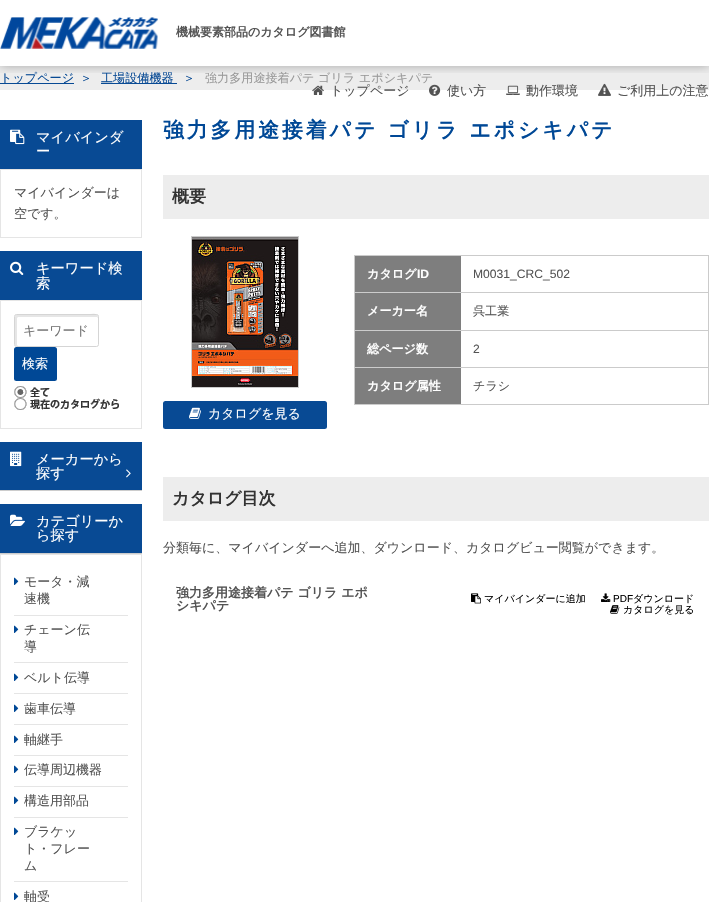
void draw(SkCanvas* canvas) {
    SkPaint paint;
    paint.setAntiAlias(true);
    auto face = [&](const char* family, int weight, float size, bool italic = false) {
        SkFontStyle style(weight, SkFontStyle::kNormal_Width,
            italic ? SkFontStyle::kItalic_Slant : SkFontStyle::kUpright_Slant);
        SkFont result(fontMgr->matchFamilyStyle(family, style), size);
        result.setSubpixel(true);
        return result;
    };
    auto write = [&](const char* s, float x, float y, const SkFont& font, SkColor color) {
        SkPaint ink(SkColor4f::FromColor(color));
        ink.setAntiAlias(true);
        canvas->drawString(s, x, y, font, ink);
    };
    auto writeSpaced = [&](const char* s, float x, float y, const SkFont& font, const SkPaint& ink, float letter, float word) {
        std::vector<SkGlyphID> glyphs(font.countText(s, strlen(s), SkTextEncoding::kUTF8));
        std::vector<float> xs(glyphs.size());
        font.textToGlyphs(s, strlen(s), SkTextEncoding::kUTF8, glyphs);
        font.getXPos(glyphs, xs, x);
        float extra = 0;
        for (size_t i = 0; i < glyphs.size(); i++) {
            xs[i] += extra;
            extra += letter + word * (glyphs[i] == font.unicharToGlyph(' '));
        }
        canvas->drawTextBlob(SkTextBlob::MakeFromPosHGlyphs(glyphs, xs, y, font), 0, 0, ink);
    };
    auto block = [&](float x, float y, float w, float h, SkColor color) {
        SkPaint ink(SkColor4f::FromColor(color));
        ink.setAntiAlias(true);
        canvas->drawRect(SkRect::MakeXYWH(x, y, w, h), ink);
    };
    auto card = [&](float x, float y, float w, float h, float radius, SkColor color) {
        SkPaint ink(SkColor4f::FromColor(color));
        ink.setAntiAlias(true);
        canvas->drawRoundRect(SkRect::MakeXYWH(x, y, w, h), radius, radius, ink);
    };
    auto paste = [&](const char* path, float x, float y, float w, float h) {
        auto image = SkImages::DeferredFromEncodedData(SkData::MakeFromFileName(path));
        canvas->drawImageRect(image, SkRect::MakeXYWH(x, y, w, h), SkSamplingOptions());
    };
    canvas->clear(SK_ColorWHITE);
    block(0, 66, 709, 24, SkColorSetRGB(237, 237, 237));
    canvas->save();
    canvas->clipRect(SkRect::MakeXYWH(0, 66, 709, 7));
    paint.setColor(SkColorSetARGB(77, 0, 0, 0));
    paint.setMaskFilter(SkMaskFilter::MakeBlur(kNormal_SkBlurStyle, 5));
    canvas->drawRect(SkRect::MakeXYWH(0, 0, 709, 66), paint);
    paint.setMaskFilter(nullptr);
    canvas->restore();
    paste("pic1.png", 0, 17, 158, 32);
    auto kFont1 = face("WenQuanYi Zen Hei", 700, 12);
    write("機械要素部品のカタログ図書館", 176, 36, kFont1, SkColorSetRGB(83, 83, 83));
    paste("pic2.png", 312, 85, 12, 10);
    auto kFont2 = face("WenQuanYi Zen Hei", 500, 13);
    write("トップページ", 330, 95, kFont2, SkColorSetRGB(83, 83, 83));
    paste("pic3.png", 429, 84, 12, 12);
    write("使い方", 447, 95, kFont2, SkColorSetRGB(83, 83, 83));
    paste("pic4.png", 506, 85, 14, 10);
    write("動作環境", 526, 95, kFont2, SkColorSetRGB(83, 83, 83));
    paste("pic5.png", 598, 83, 13, 13);
    write("ご利用上の注意", 617, 95, kFont2, SkColorSetRGB(83, 83, 83));
    block(0, 83, 74, 1, SkColorSetRGB(8, 74, 148));
    auto kFont3 = face("WenQuanYi Zen Hei", 500, 12.1f);
    write("トップページ", 0, 82, kFont3, SkColorSetRGB(8, 74, 148));
    write("＞", 80, 82, kFont3, SkColorSetRGB(8, 74, 148));
    block(101, 83, 76, 1, SkColorSetRGB(8, 74, 148));
    write("工場設備機器", 101, 82, kFont3, SkColorSetRGB(8, 74, 148));
    write("＞", 183, 82, kFont3, SkColorSetRGB(8, 74, 148));
    write("強力多用途接着パテ ゴリラ エポシキパテ", 205, 82, kFont3, SkColorSetRGB(153, 153, 153));
    block(0, 120, 142, 49, SkColorSetRGB(8, 74, 148));
    paste("pic6.png", 10, 129, 15, 16);
    auto kFont4 = face("WenQuanYi Zen Hei", 500, 14.25f);
    write("マイバインダ", 36, 142, kFont4, SK_ColorWHITE);
    write("ー", 36, 156, kFont4, SK_ColorWHITE);
    paint.setStyle(SkPaint::kStroke_Style);
    paint.setStrokeWidth(1);
    paint.setColor(SkColorSetRGB(229, 229, 229));
    canvas->drawRect(SkRect::MakeXYWH(0.5f, 169.5f, 141, 68), paint);
    write("マイバインダーは", 14, 197, kFont2, SkColorSetRGB(83, 83, 83));
    write("空です。", 14, 218, kFont2, SkColorSetRGB(83, 83, 83));
    block(0, 251, 142, 49, SkColorSetRGB(8, 74, 148));
    paste("pic7.png", 10, 261, 14, 14);
    write("キーワード検", 36, 273, kFont4, SK_ColorWHITE);
    write("索", 36, 288, kFont4, SK_ColorWHITE);
    canvas->drawRect(SkRect::MakeXYWH(0.5f, 300.5f, 141, 128), paint);
    paint.setStyle(SkPaint::kFill_Style);
    paint.setColor(SkColorSetRGB(230, 230, 230));
    canvas->drawPath(SkPathBuilder(SkPathFillType::kEvenOdd).moveTo(18, 317).lineTo(97, 317).lineTo(98, 318).cubicTo(98, 311, 89, 315, 83, 315).lineTo(30, 315).cubicTo(13, 315, 15, 311, 15, 326).lineTo(15, 340).cubicTo(15, 344, 14, 346, 18, 346).lineTo(17, 345).lineTo(17, 318).close().moveTo(98, 345).lineTo(97, 346).close().detach(), paint);
    paint.setStyle(SkPaint::kStroke_Style);
    paint.setColor(SkColorSetRGB(213, 213, 213));
    canvas->drawRoundRect(SkRect::MakeXYWH(14.5f, 314.5f, 84, 32), 2, 2, paint);
    write("キーワード", 23, 335, kFont2, SkColorSetRGB(117, 117, 117));
    card(14, 347, 43, 34, 2.5f, SkColorSetRGB(0, 72, 150));
    write("検索", 22, 368, kFont2, SK_ColorWHITE);
    paste("pic8.png", 14, 386, 36, 12);
    paste("pic9.png", 14, 398, 105, 12);
    block(0, 442, 142, 48, SkColorSetRGB(8, 74, 148));
    block(0, 490, 142, 1, SkColorSetRGB(204, 204, 204));
    paste("pic10.png", 10, 451, 12, 16);
    write("メーカーから", 36, 464, kFont4, SK_ColorWHITE);
    write("探す", 36, 478, kFont4, SK_ColorWHITE);
    paste("pic11.png", 126, 469, 5, 9);
    block(0, 504, 142, 49, SkColorSetRGB(8, 74, 148));
    block(0, 553, 142, 1, SkColorSetRGB(204, 204, 204));
    paste("pic12.png", 10, 514, 15, 12);
    write("カテゴリーか", 36, 526, kFont4, SK_ColorWHITE);
    write("ら探す", 36, 540, kFont4, SK_ColorWHITE);
    paint.setColor(SkColorSetRGB(229, 229, 229));
    canvas->drawRect(SkRect::MakeXYWH(0.5f, 554.5f, 141, 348), paint);
    block(14, 615, 114, 1, SkColorSetRGB(229, 229, 229));
    paste("pic13.png", 14, 577, 5, 8);
    write("モータ・減", 24, 586, kFont2, SkColorSetRGB(83, 83, 83));
    write("速機", 24, 603, kFont2, SkColorSetRGB(83, 83, 83));
    block(14, 662, 114, 1, SkColorSetRGB(229, 229, 229));
    paste("pic13.png", 14, 625, 5, 8);
    write("チェーン伝", 24, 634, kFont2, SkColorSetRGB(83, 83, 83));
    write("導", 24, 651, kFont2, SkColorSetRGB(83, 83, 83));
    block(14, 693, 114, 1, SkColorSetRGB(229, 229, 229));
    paste("pic13.png", 14, 673, 5, 8);
    write("ベルト伝導", 24, 682, kFont2, SkColorSetRGB(83, 83, 83));
    block(14, 724, 114, 1, SkColorSetRGB(229, 229, 229));
    paste("pic13.png", 14, 704, 5, 8);
    write("歯車伝導", 24, 713, kFont2, SkColorSetRGB(83, 83, 83));
    block(14, 755, 114, 1, SkColorSetRGB(229, 229, 229));
    paste("pic13.png", 14, 735, 5, 8);
    write("軸継手", 24, 744, kFont2, SkColorSetRGB(83, 83, 83));
    block(14, 786, 114, 1, SkColorSetRGB(229, 229, 229));
    paste("pic13.png", 14, 765, 5, 8);
    write("伝導周辺機器", 24, 774, kFont2, SkColorSetRGB(83, 83, 83));
    block(14, 817, 114, 1, SkColorSetRGB(229, 229, 229));
    paste("pic13.png", 14, 796, 5, 8);
    write("構造用部品", 24, 805, kFont2, SkColorSetRGB(83, 83, 83));
    block(14, 881, 114, 1, SkColorSetRGB(229, 229, 229));
    paste("pic13.png", 14, 827, 5, 8);
    write("ブラケッ", 24, 836, kFont2, SkColorSetRGB(83, 83, 83));
    write("ト・フレー", 24, 853, kFont2, SkColorSetRGB(83, 83, 83));
    write("ム", 24, 870, kFont2, SkColorSetRGB(83, 83, 83));
    paste("pic13.png", 14, 892, 5, 8);
    write("軸受", 24, 901, kFont2, SkColorSetRGB(83, 83, 83));
    auto kFont5 = face("WenQuanYi Zen Hei", 700, 20.8f);
    paint.setStyle(SkPaint::kFill_Style);
    paint.setColor(SkColorSetRGB(0, 72, 150));
    writeSpaced("強力多用途接着パテ ゴリラ エポシキパテ", 163, 137, kFont5, paint, 3, 0);
    block(163, 175, 546, 44, SkColorSetRGB(237, 237, 237));
    auto kFont6 = face("WenQuanYi Zen Hei", 700, 17);
    write("概要", 172, 202, kFont6, SkColorSetRGB(51, 51, 51));
    block(354, 255, 355, 1, SkColorSetRGB(203, 203, 203));
    block(708, 255, 1, 150, SkColorSetRGB(203, 203, 203));
    block(354, 404, 355, 1, SkColorSetRGB(203, 203, 203));
    block(354, 255, 1, 150, SkColorSetRGB(203, 203, 203));
    block(461, 292, 248, 1, SkColorSetRGB(203, 203, 203));
    block(355, 256, 106, 36, SkColorSetRGB(126, 126, 126));
    block(354, 292, 107, 1, SkColorSetRGB(204, 204, 204));
    auto kFont7 = face("WenQuanYi Zen Hei", 700, 12.1f);
    write("カタログ", 367, 278, kFont7, SK_ColorWHITE);
    auto kFont8 = face("Liberation Sans", 700, 12.1f);
    write("ID", 417, 278, kFont8, SK_ColorWHITE);
    auto kFont9 = face("Liberation Sans", 400, 12.1f);
    write("M0031_CRC_502", 473, 278, kFont9, SkColorSetRGB(83, 83, 83));
    block(461, 330, 248, 1, SkColorSetRGB(203, 203, 203));
    block(355, 293, 106, 37, SkColorSetRGB(126, 126, 126));
    block(354, 330, 107, 1, SkColorSetRGB(204, 204, 204));
    write("メーカー名", 367, 315, kFont7, SK_ColorWHITE);
    write("呉工業", 473, 315, kFont3, SkColorSetRGB(83, 83, 83));
    block(461, 367, 248, 1, SkColorSetRGB(203, 203, 203));
    block(355, 331, 106, 36, SkColorSetRGB(126, 126, 126));
    block(354, 367, 107, 1, SkColorSetRGB(204, 204, 204));
    write("総ページ数", 367, 353, kFont7, SK_ColorWHITE);
    write("2", 473, 353, kFont9, SkColorSetRGB(83, 83, 83));
    block(355, 368, 106, 36, SkColorSetRGB(126, 126, 126));
    write("カタログ属性", 367, 390, kFont7, SK_ColorWHITE);
    write("チラシ", 473, 390, kFont3, SkColorSetRGB(83, 83, 83));
    paint.setStyle(SkPaint::kStroke_Style);
    paint.setColor(SkColorSetRGB(204, 204, 204));
    canvas->drawRect(SkRect::MakeXYWH(191.5f, 236.5f, 107, 151), paint);
    paste("pic14.png", 192, 237, 106, 150);
    card(163, 401, 164, 28, 2.5f, SkColorSetRGB(8, 74, 148));
    paste("pic15.png", 189, 407, 12, 12);
    write("カタログを見る", 208, 418, kFont2, SK_ColorWHITE);
    block(163, 477, 546, 44, SkColorSetRGB(237, 237, 237));
    write("カタログ目次", 172, 504, kFont6, SkColorSetRGB(51, 51, 51));
    write("分類毎に、マイバインダーへ追加、ダウンロード、カタログビュー閲覧ができます。", 163, 552, kFont2, SkColorSetRGB(83, 83, 83));
    auto kFont10 = face("WenQuanYi Zen Hei", 700, 13);
    write("強力多用途接着パテ ゴリラ エポ", 176, 597, kFont10, SkColorSetRGB(83, 83, 83));
    write("シキパテ", 176, 610, kFont10, SkColorSetRGB(83, 83, 83));
    paste("pic16.png", 471, 593, 10, 11);
    auto kFont11 = face("WenQuanYi Zen Hei", 500, 10);
    write("マイバインダーに追加", 484, 602, kFont11, SK_ColorBLACK);
    paste("pic17.png", 601, 593, 10, 9);
    auto kFont12 = face("Liberation Sans", 400, 10);
    write("PDF", 613, 602, kFont12, SK_ColorBLACK);
    write("ダウンロード", 633, 602, kFont11, SK_ColorBLACK);
    paste("pic18.png", 610, 605, 10, 9);
    write("カタログを見る", 623, 613, kFont11, SK_ColorBLACK);
}
